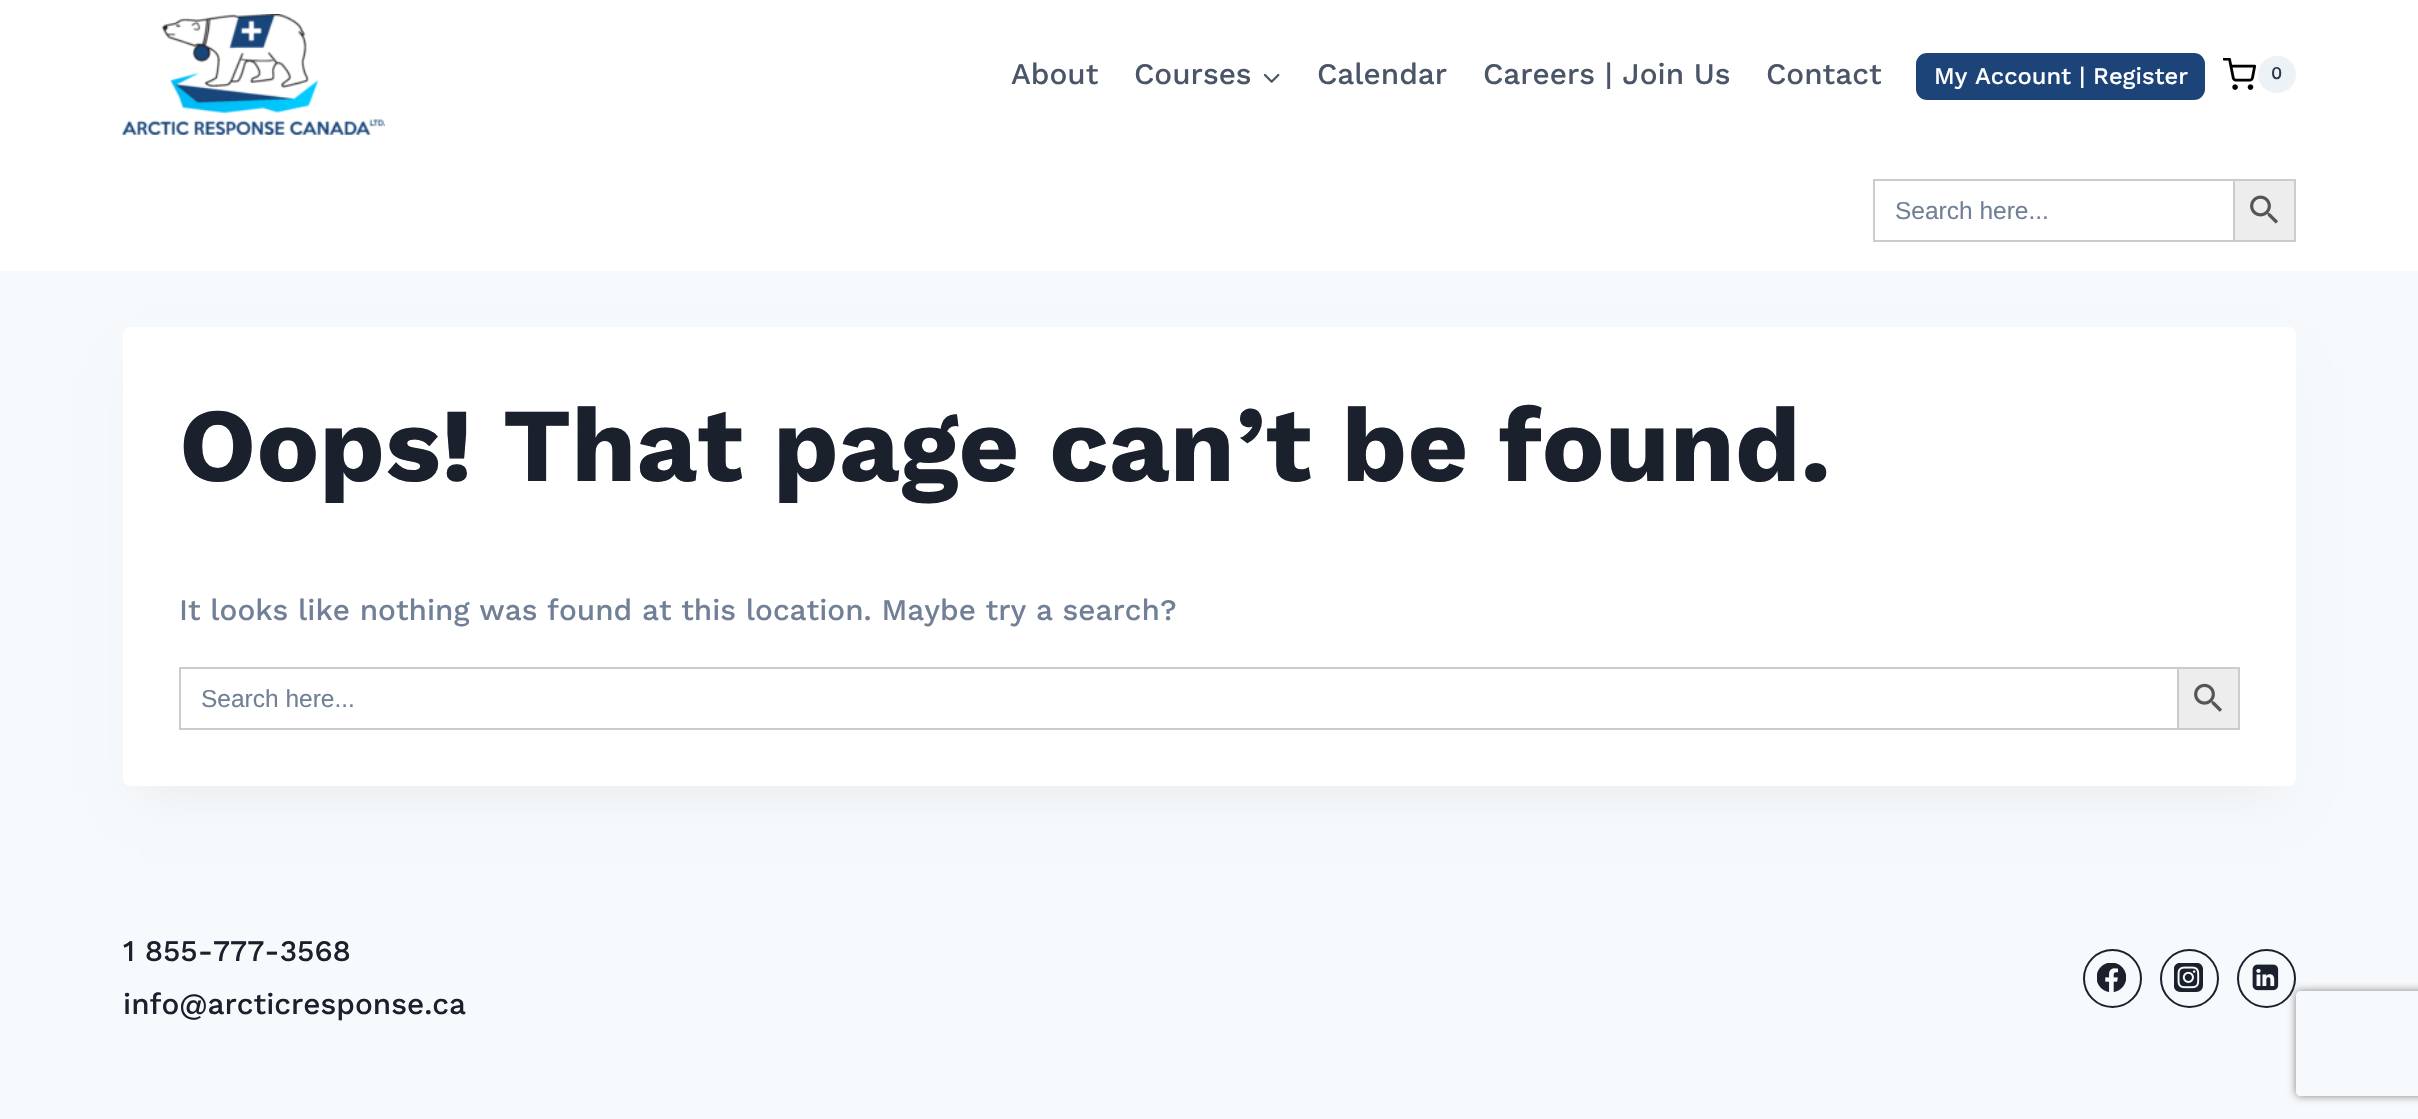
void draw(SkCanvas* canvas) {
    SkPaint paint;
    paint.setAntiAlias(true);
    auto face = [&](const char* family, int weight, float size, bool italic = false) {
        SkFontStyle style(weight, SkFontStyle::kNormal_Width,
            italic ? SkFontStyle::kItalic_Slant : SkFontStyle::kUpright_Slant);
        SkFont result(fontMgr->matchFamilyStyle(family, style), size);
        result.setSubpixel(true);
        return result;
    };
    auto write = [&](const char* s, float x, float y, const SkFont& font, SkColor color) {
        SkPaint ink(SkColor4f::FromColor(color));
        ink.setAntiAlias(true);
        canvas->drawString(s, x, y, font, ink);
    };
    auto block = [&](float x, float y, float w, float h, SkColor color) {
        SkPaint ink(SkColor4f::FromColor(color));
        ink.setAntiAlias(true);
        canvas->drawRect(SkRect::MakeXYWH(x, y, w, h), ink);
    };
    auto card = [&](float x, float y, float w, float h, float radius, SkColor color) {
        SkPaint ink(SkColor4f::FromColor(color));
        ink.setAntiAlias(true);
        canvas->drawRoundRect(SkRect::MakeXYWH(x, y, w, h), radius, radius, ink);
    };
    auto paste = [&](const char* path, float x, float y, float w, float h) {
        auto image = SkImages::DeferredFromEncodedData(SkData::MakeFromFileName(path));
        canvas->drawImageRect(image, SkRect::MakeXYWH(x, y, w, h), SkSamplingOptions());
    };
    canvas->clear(SkColorSetRGB(247, 250, 252));
    block(0, 0, 2418, 271, SK_ColorWHITE);
    paste("pic1.png", 122, 14, 263, 121);
    auto kFont1 = face("Work Sans", 500, 29.75f);
    write("About", 1011, 84, kFont1, SkColorSetRGB(74, 85, 104));
    write("Courses", 1134, 84, kFont1, SkColorSetRGB(74, 85, 104));
    paste("pic2.png", 1263, 73, 17, 10);
    write("Calendar", 1317, 84, kFont1, SkColorSetRGB(74, 85, 104));
    write("Careers | Join Us", 1483, 84, kFont1, SkColorSetRGB(74, 85, 104));
    write("Contact", 1766, 84, kFont1, SkColorSetRGB(74, 85, 104));
    card(1916, 53, 289, 47, 11, SkColorSetRGB(29, 68, 121));
    auto kFont2 = face("Work Sans", 500, 23.75f);
    write("My Account | Register", 1934, 84, kFont2, SK_ColorWHITE);
    paste("pic3.png", 2223, 58, 33, 32);
    card(2258, 56, 38, 37, 18.5f, SkColorSetRGB(237, 242, 247));
    auto kFont3 = face("Work Sans", 500, 18);
    write("0", 2271, 79, kFont3, SkColorSetRGB(45, 55, 72));
    block(1873, 179, 360, 2, SkColorSetRGB(204, 204, 204));
    block(1873, 240, 360, 2, SkColorSetRGB(204, 204, 204));
    block(1873, 179, 2, 63, SkColorSetRGB(204, 204, 204));
    auto kFont4 = face("Liberation Sans", 400, 24.5f);
    write("Search here...", 1895, 219, kFont4, SkColorSetRGB(113, 128, 150));
    paint.setColor(SkColorSetRGB(237, 237, 237));
    canvas->drawRect(SkRect::MakeXYWH(2234, 180, 61, 61), paint);
    paint.setStyle(SkPaint::kStroke_Style);
    paint.setStrokeWidth(2);
    paint.setColor(SkColorSetRGB(204, 204, 204));
    canvas->drawRect(SkRect::MakeXYWH(2234, 180, 61, 61), paint);
    paste("pic4.png", 2250, 195, 28, 29);
    paint.setStyle(SkPaint::kFill_Style);
    paint.setColor(SkColorSetARGB(13, 0, 0, 0));
    paint.setMaskFilter(SkMaskFilter::MakeBlur(kNormal_SkBlurStyle, 22));
    canvas->drawRect(SkRect::MakeXYWH(140, 371, 2139, 424), paint);
    paint.setMaskFilter(nullptr);
    card(123, 327, 2173, 459, 7, SK_ColorWHITE);
    auto kFont5 = face("Work Sans", 700, 105);
    write("Oops! That page can’t be found.", 179, 481, kFont5, SkColorSetRGB(26, 32, 44));
    write("It looks like nothing was found at this location. Maybe try a search?", 179, 620, kFont1, SkColorSetRGB(113, 128, 150));
    block(179, 667, 1998, 2, SkColorSetRGB(204, 204, 204));
    block(179, 728, 1998, 2, SkColorSetRGB(204, 204, 204));
    block(179, 667, 2, 63, SkColorSetRGB(204, 204, 204));
    write("Search here...", 201, 707, kFont4, SkColorSetRGB(113, 128, 150));
    paint.setColor(SkColorSetRGB(237, 237, 237));
    canvas->drawRect(SkRect::MakeXYWH(2178, 668, 61, 61), paint);
    paint.setStyle(SkPaint::kStroke_Style);
    paint.setColor(SkColorSetRGB(204, 204, 204));
    canvas->drawRect(SkRect::MakeXYWH(2178, 668, 61, 61), paint);
    paste("pic5.png", 2194, 683, 28, 29);
    write("1 855-777-3568", 123, 961, kFont1, SkColorSetRGB(26, 32, 44));
    write("info@arcticresponse.ca", 123, 1014, kFont1, SkColorSetRGB(26, 32, 44));
    paint.setColor(SkColorSetRGB(26, 32, 44));
    canvas->drawCircle(2112.5f, 978.5f, 28.5f, paint);
    paste("pic6.png", 2097, 963, 29, 29);
    canvas->drawCircle(2189.5f, 978.5f, 28.5f, paint);
    paste("pic7.png", 2174, 963, 29, 29);
    canvas->drawCircle(2266.5f, 978.5f, 28.5f, paint);
    paste("pic8.png", 2252, 964, 27, 27);
    canvas->save();
    canvas->clipPath(SkPathBuilder(SkPathFillType::kEvenOdd).moveTo(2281, 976).lineTo(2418, 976).lineTo(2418, 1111).lineTo(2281, 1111).close().moveTo(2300, 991).lineTo(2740, 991).cubicTo(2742, 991, 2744, 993, 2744, 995).lineTo(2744, 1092).cubicTo(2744, 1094, 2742, 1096, 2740, 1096).lineTo(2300, 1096).cubicTo(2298, 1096, 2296, 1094, 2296, 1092).lineTo(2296, 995).cubicTo(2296, 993, 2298, 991, 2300, 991).close().detach(), true);
    paint.setStyle(SkPaint::kFill_Style);
    paint.setColor(SkColorSetRGB(128, 128, 128));
    paint.setMaskFilter(SkMaskFilter::MakeBlur(kNormal_SkBlurStyle, 4.5f));
    canvas->drawRoundRect(SkRect::MakeXYWH(2296, 991, 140, 105), 4, 4, paint);
    paint.setMaskFilter(nullptr);
    canvas->restore();
}
